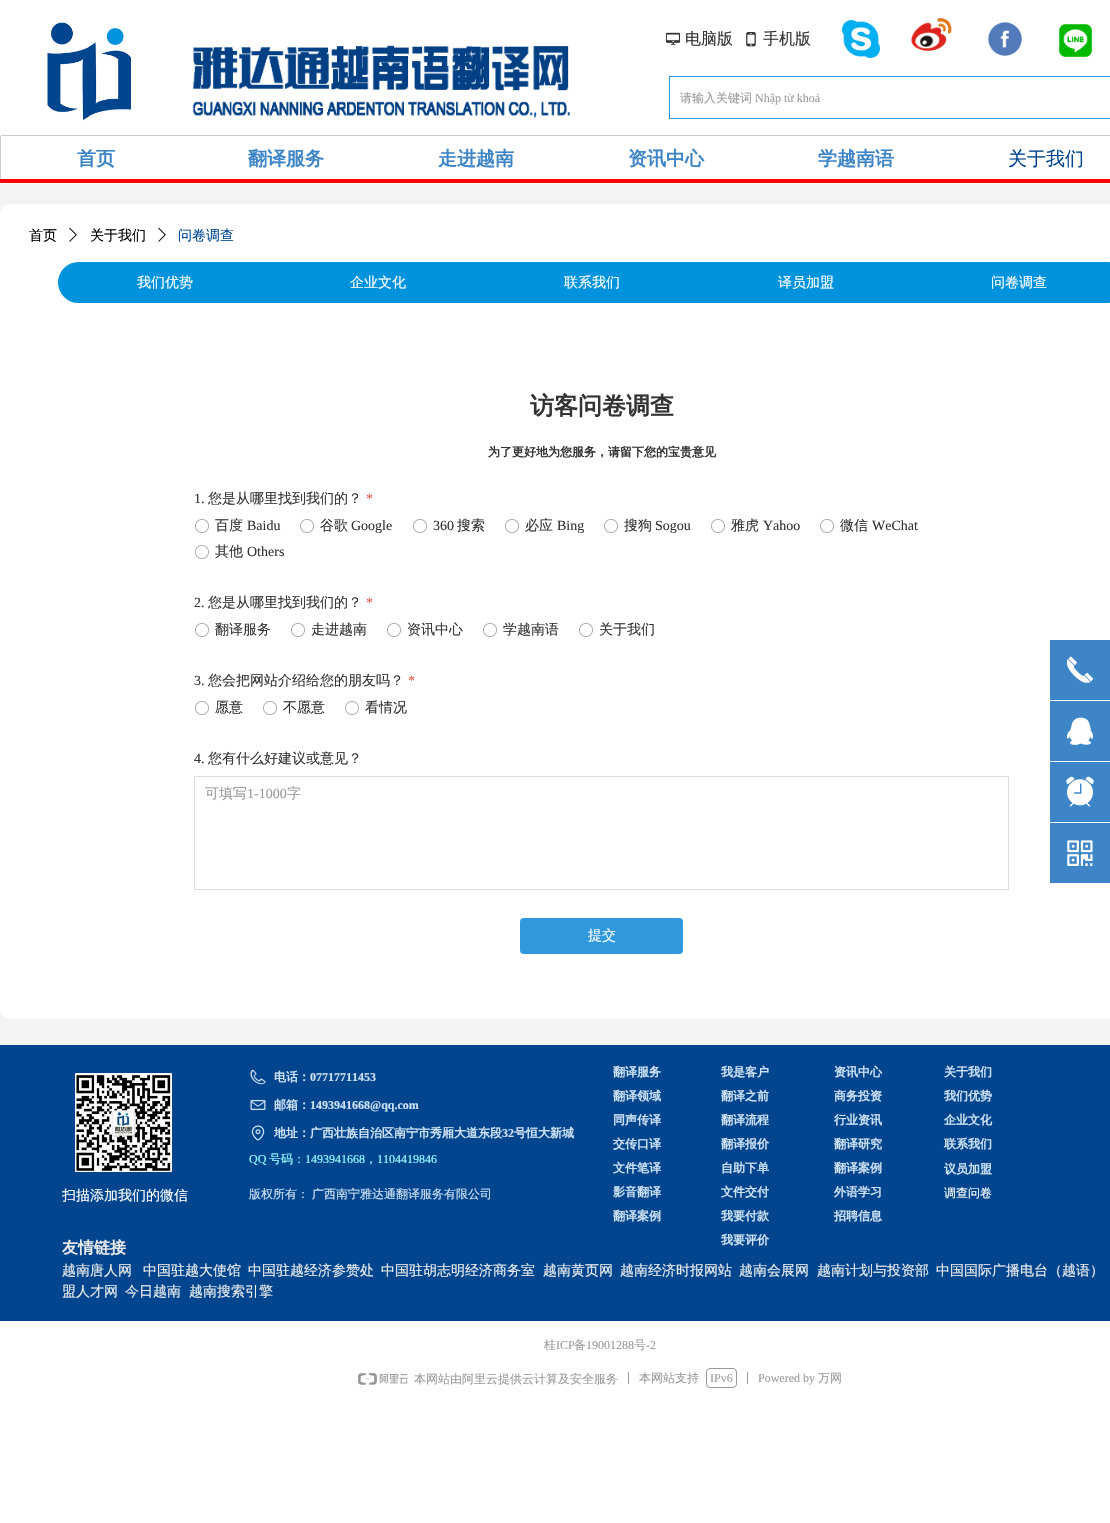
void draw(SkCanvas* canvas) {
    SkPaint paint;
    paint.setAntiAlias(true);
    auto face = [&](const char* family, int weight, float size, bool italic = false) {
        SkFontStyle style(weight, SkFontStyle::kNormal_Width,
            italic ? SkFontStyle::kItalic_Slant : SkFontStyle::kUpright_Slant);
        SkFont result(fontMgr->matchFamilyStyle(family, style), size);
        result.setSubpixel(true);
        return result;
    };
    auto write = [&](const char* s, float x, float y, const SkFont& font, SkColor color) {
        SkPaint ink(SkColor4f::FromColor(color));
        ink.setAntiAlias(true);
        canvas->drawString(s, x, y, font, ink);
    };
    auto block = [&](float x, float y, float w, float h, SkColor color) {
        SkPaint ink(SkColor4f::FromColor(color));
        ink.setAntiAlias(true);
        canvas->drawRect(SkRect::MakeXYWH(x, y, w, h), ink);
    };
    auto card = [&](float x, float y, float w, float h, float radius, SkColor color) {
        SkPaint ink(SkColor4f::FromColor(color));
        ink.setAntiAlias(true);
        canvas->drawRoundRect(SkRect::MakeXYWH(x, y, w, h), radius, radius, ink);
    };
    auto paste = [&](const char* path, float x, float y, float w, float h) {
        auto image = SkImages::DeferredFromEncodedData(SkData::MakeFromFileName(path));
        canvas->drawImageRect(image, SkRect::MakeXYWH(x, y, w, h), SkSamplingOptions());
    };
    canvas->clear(SK_ColorWHITE);
    paste("pic1.png", 47, 21, 84, 101);
    paste("pic2.png", 665, 32, 16, 13);
    auto kFont1 = face("WenQuanYi Zen Hei", 500, 16);
    write("电脑版", 685, 44, kFont1, SkColorSetRGB(51, 51, 51));
    paste("pic3.png", 746, 32, 10, 15);
    write("手机版", 763, 44, kFont1, SkColorSetRGB(51, 51, 51));
    paste("pic4.png", 842, 20, 38, 38);
    paste("pic5.png", 911, 18, 41, 33);
    paste("pic6.png", 988, 22, 34, 34);
    paste("pic7.png", 1059, 24, 33, 33);
    paste("pic8.png", 192, 45, 378, 73);
    paint.setStyle(SkPaint::kStroke_Style);
    paint.setStrokeWidth(1);
    paint.setColor(SkColorSetRGB(48, 153, 221));
    canvas->drawRect(SkRect::MakeXYWH(669.5f, 76.5f, 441, 42), paint);
    auto kFont2 = face("WenQuanYi Zen Hei", 500, 12);
    write("请输入关键词", 680, 102, kFont2, SkColorSetRGB(153, 153, 153));
    auto kFont3 = face("Liberation Serif", 400, 12);
    write("Nhập từ khoá", 755, 102, kFont3, SkColorSetRGB(153, 153, 153));
    block(1, 135, 1109, 1, SkColorSetRGB(204, 204, 204));
    block(0, 136, 1, 43, SkColorSetRGB(204, 204, 204));
    auto kFont4 = face("WenQuanYi Zen Hei", 700, 19);
    write("首页", 77, 165, kFont4, SkColorSetRGB(61, 133, 198));
    write("翻译服务", 248, 165, kFont4, SkColorSetRGB(61, 133, 198));
    write("走进越南", 438, 165, kFont4, SkColorSetRGB(61, 133, 198));
    write("资讯中心", 628, 165, kFont4, SkColorSetRGB(61, 133, 198));
    write("学越南语", 818, 165, kFont4, SkColorSetRGB(61, 133, 198));
    auto kFont5 = face("WenQuanYi Zen Hei", 500, 19);
    write("关于我们", 1008, 165, kFont5, SkColorSetRGB(0, 69, 142));
    block(0, 179, 1110, 4, SkColorSetRGB(255, 0, 0));
    block(0, 184, 1110, 861, SkColorSetRGB(243, 243, 243));
    card(0, 204, 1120, 815, 10, SK_ColorWHITE);
    auto kFont6 = face("WenQuanYi Zen Hei", 500, 14);
    write("首页", 29, 240, kFont6, SK_ColorBLACK);
    paste("pic9.png", 69, 227, 8, 15);
    write("关于我们", 90, 240, kFont6, SK_ColorBLACK);
    paste("pic9.png", 158, 227, 8, 15);
    write("问卷调查", 178, 240, kFont6, SkColorSetRGB(0, 69, 142));
    card(58, 262, 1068, 41, 20.5f, SkColorSetRGB(0, 147, 221));
    write("我们优势", 137, 287, kFont6, SK_ColorWHITE);
    write("企业文化", 350, 287, kFont6, SK_ColorWHITE);
    write("联系我们", 564, 287, kFont6, SK_ColorWHITE);
    write("译员加盟", 778, 287, kFont6, SK_ColorWHITE);
    paint.setStyle(SkPaint::kFill_Style);
    paint.setColor(SkColorSetRGB(0, 147, 221));
    canvas->drawPath(SkPathBuilder().moveTo(912, 262).lineTo(1105.5f, 262).cubicTo(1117, 262, 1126, 271, 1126, 282.5f).cubicTo(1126, 294, 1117, 303, 1105.5f, 303).lineTo(912, 303).close().detach(), paint);
    write("问卷调查", 991, 287, kFont6, SK_ColorWHITE);
    auto kFont7 = face("WenQuanYi Zen Hei", 700, 24);
    write("访客问卷调查", 530, 414, kFont7, SkColorSetRGB(51, 51, 51));
    auto kFont8 = face("WenQuanYi Zen Hei", 700, 12);
    write("为了更好地为您服务，请留下您的宝贵意见", 488, 456, kFont8, SkColorSetRGB(51, 51, 51));
    auto kFont9 = face("Liberation Serif", 400, 14);
    write("1.", 194, 503, kFont9, SkColorSetRGB(51, 51, 51));
    write("您是从哪里找到我们的？", 208, 503, kFont6, SkColorSetRGB(51, 51, 51));
    write("*", 366, 503, kFont9, SkColorSetRGB(231, 88, 69));
    paste("pic10.png", 195, 519, 14, 14);
    write("百度", 215, 530, kFont6, SkColorSetRGB(51, 51, 51));
    write("Baidu", 247, 530, kFont9, SkColorSetRGB(51, 51, 51));
    paste("pic10.png", 300, 519, 14, 14);
    write("谷歌", 320, 530, kFont6, SkColorSetRGB(51, 51, 51));
    write("Google", 351, 530, kFont9, SkColorSetRGB(51, 51, 51));
    paste("pic10.png", 413, 519, 14, 14);
    write("360", 433, 530, kFont9, SkColorSetRGB(51, 51, 51));
    write("搜索", 457, 530, kFont6, SkColorSetRGB(51, 51, 51));
    paste("pic10.png", 505, 519, 14, 14);
    write("必应", 525, 530, kFont6, SkColorSetRGB(51, 51, 51));
    write("Bing", 557, 530, kFont9, SkColorSetRGB(51, 51, 51));
    paste("pic10.png", 604, 519, 14, 14);
    write("搜狗", 624, 530, kFont6, SkColorSetRGB(51, 51, 51));
    write("Sogou", 655, 530, kFont9, SkColorSetRGB(51, 51, 51));
    paste("pic10.png", 711, 519, 14, 14);
    write("雅虎", 731, 530, kFont6, SkColorSetRGB(51, 51, 51));
    write("Yahoo", 763, 530, kFont9, SkColorSetRGB(51, 51, 51));
    paste("pic10.png", 820, 519, 14, 14);
    write("微信", 840, 530, kFont6, SkColorSetRGB(51, 51, 51));
    write("WeChat", 872, 530, kFont9, SkColorSetRGB(51, 51, 51));
    paste("pic10.png", 195, 545, 14, 14);
    write("其他", 215, 556, kFont6, SkColorSetRGB(51, 51, 51));
    write("Others", 247, 556, kFont9, SkColorSetRGB(51, 51, 51));
    write("2.", 194, 607, kFont9, SkColorSetRGB(51, 51, 51));
    write("您是从哪里找到我们的？", 208, 607, kFont6, SkColorSetRGB(51, 51, 51));
    write("*", 366, 607, kFont9, SkColorSetRGB(231, 88, 69));
    paste("pic10.png", 195, 623, 14, 14);
    write("翻译服务", 215, 634, kFont6, SkColorSetRGB(51, 51, 51));
    paste("pic10.png", 291, 623, 14, 14);
    write("走进越南", 311, 634, kFont6, SkColorSetRGB(51, 51, 51));
    paste("pic10.png", 387, 623, 14, 14);
    write("资讯中心", 407, 634, kFont6, SkColorSetRGB(51, 51, 51));
    paste("pic10.png", 483, 623, 14, 14);
    write("学越南语", 503, 634, kFont6, SkColorSetRGB(51, 51, 51));
    paste("pic10.png", 579, 623, 14, 14);
    write("关于我们", 599, 634, kFont6, SkColorSetRGB(51, 51, 51));
    write("3.", 194, 685, kFont9, SkColorSetRGB(51, 51, 51));
    write("您会把网站介绍给您的朋友吗？", 208, 685, kFont6, SkColorSetRGB(51, 51, 51));
    write("*", 408, 685, kFont9, SkColorSetRGB(231, 88, 69));
    paste("pic10.png", 195, 701, 14, 14);
    write("愿意", 215, 712, kFont6, SkColorSetRGB(51, 51, 51));
    paste("pic10.png", 263, 701, 14, 14);
    write("不愿意", 283, 712, kFont6, SkColorSetRGB(51, 51, 51));
    paste("pic10.png", 345, 701, 14, 14);
    write("看情况", 365, 712, kFont6, SkColorSetRGB(51, 51, 51));
    write("4.", 194, 763, kFont9, SkColorSetRGB(51, 51, 51));
    write("您有什么好建议或意见？", 208, 763, kFont6, SkColorSetRGB(51, 51, 51));
    paint.setStyle(SkPaint::kStroke_Style);
    paint.setColor(SkColorSetRGB(221, 221, 221));
    canvas->drawRect(SkRect::MakeXYWH(194.5f, 776.5f, 814, 113), paint);
    write("可填写", 205, 798, kFont6, SkColorSetRGB(153, 153, 153));
    write("1-1000", 247, 798, kFont9, SkColorSetRGB(153, 153, 153));
    write("字", 287, 798, kFont6, SkColorSetRGB(153, 153, 153));
    card(520, 918, 163, 36, 4, SkColorSetRGB(48, 153, 221));
    write("提交", 588, 940, kFont6, SK_ColorWHITE);
    block(0, 1045, 1110, 276, SkColorSetRGB(0, 69, 142));
    paste("pic11.png", 75, 1073, 97, 99);
    paste("pic12.png", 250, 1069, 16, 16);
    write("电话：", 274, 1081, kFont8, SkColorSetRGB(207, 226, 243));
    auto kFont10 = face("Liberation Serif", 700, 12);
    write("07717711453", 310, 1081, kFont10, SkColorSetRGB(207, 226, 243));
    paste("pic13.png", 250, 1100, 16, 10);
    write("邮箱：", 274, 1109, kFont8, SkColorSetRGB(207, 226, 243));
    write("1493941668@qq.com", 310, 1109, kFont10, SkColorSetRGB(207, 226, 243));
    paste("pic14.png", 251, 1125, 14, 16);
    write("地址：广西壮族自治区南宁市秀厢大道东段", 274, 1137, kFont8, SkColorSetRGB(207, 226, 243));
    write("32", 502, 1137, kFont10, SkColorSetRGB(207, 226, 243));
    write("号恒大新城", 514, 1137, kFont8, SkColorSetRGB(207, 226, 243));
    write("翻译服务", 613, 1076, kFont8, SkColorSetRGB(207, 226, 243));
    write("翻译领域", 613, 1100, kFont8, SkColorSetRGB(207, 226, 243));
    write("同声传译", 613, 1124, kFont8, SkColorSetRGB(207, 226, 243));
    write("交传口译", 613, 1148, kFont8, SkColorSetRGB(207, 226, 243));
    write("文件笔译", 613, 1172, kFont8, SkColorSetRGB(207, 226, 243));
    write("影音翻译", 613, 1196, kFont8, SkColorSetRGB(207, 226, 243));
    write("翻译案例", 613, 1220, kFont8, SkColorSetRGB(207, 226, 243));
    write("我是客户", 721, 1076, kFont8, SkColorSetRGB(207, 226, 243));
    write("翻译之前", 721, 1100, kFont8, SkColorSetRGB(207, 226, 243));
    write("翻译流程", 721, 1124, kFont8, SkColorSetRGB(207, 226, 243));
    write("翻译报价", 721, 1148, kFont8, SkColorSetRGB(207, 226, 243));
    write("自助下单", 721, 1172, kFont8, SkColorSetRGB(207, 226, 243));
    write("文件交付", 721, 1196, kFont8, SkColorSetRGB(207, 226, 243));
    write("我要付款", 721, 1220, kFont8, SkColorSetRGB(207, 226, 243));
    write("我要评价", 721, 1244, kFont8, SkColorSetRGB(207, 226, 243));
    write("资讯中心", 834, 1076, kFont8, SkColorSetRGB(207, 226, 243));
    write("商务投资", 834, 1100, kFont8, SkColorSetRGB(207, 226, 243));
    write("行业资讯", 834, 1124, kFont8, SkColorSetRGB(207, 226, 243));
    write("翻译研究", 834, 1148, kFont8, SkColorSetRGB(207, 226, 243));
    write("翻译案例", 834, 1172, kFont8, SkColorSetRGB(207, 226, 243));
    write("外语学习", 834, 1196, kFont8, SkColorSetRGB(207, 226, 243));
    write("招聘信息", 834, 1220, kFont8, SkColorSetRGB(207, 226, 243));
    write("关于我们", 944, 1076, kFont8, SkColorSetRGB(207, 226, 243));
    write("我们优势", 944, 1100, kFont8, SkColorSetRGB(207, 226, 243));
    write("企业文化", 944, 1124, kFont8, SkColorSetRGB(207, 226, 243));
    write("联系我们", 944, 1148, kFont8, SkColorSetRGB(207, 226, 243));
    write("议员加盟", 944, 1173, kFont8, SkColorSetRGB(207, 226, 243));
    write("调查问卷", 944, 1197, kFont2, SK_ColorWHITE);
    write("QQ", 249, 1163, kFont3, SkColorSetRGB(153, 255, 255));
    write("号码：", 269, 1163, kFont2, SkColorSetRGB(153, 255, 255));
    write("1493941668", 305, 1163, kFont3, SkColorSetRGB(153, 255, 255));
    write("，", 365, 1163, kFont2, SkColorSetRGB(153, 255, 255));
    write("1104419846", 377, 1163, kFont3, SkColorSetRGB(153, 255, 255));
    write("扫描添加我们的微信", 62, 1200, kFont6, SK_ColorWHITE);
    write("版权所有：", 249, 1198, kFont2, SkColorSetRGB(207, 226, 243));
    write("广西南宁雅达通翻译服务有限公司", 312, 1198, kFont2, SkColorSetRGB(207, 226, 243));
    auto kFont11 = face("WenQuanYi Zen Hei", 700, 16);
    write("友情链接", 62, 1253, kFont11, SkColorSetRGB(238, 238, 238));
    write("越南唐人网", 62, 1275, kFont6, SkColorSetRGB(238, 238, 238));
    write("中国驻越大使馆", 143, 1275, kFont6, SkColorSetRGB(238, 238, 238));
    write("中国驻越经济参赞处", 248, 1275, kFont6, SkColorSetRGB(238, 238, 238));
    write("中国驻胡志明经济商务室", 381, 1275, kFont6, SkColorSetRGB(238, 238, 238));
    write("越南黄页网", 543, 1275, kFont6, SkColorSetRGB(238, 238, 238));
    write("越南经济时报网站", 620, 1275, kFont6, SkColorSetRGB(238, 238, 238));
    write("越南会展网", 739, 1275, kFont6, SkColorSetRGB(238, 238, 238));
    write("越南计划与投资部", 817, 1275, kFont6, SkColorSetRGB(238, 238, 238));
    write("中国国际广播电台（越语）", 936, 1275, kFont6, SkColorSetRGB(238, 238, 238));
    write("盟人才网", 62, 1296, kFont6, SkColorSetRGB(238, 238, 238));
    write("今日越南", 125, 1296, kFont6, SkColorSetRGB(238, 238, 238));
    write("越南搜索引擎", 189, 1296, kFont6, SkColorSetRGB(238, 238, 238));
    block(1050, 640, 60, 60, SkColorSetRGB(61, 133, 198));
    paste("pic15.png", 1066, 656, 27, 27);
    block(1050, 701, 60, 60, SkColorSetRGB(61, 133, 198));
    paste("pic16.png", 1066, 717, 28, 28);
    block(1050, 762, 60, 60, SkColorSetRGB(61, 133, 198));
    paste("pic17.png", 1066, 776, 28, 31);
    block(1050, 823, 60, 60, SkColorSetRGB(61, 133, 198));
    paste("pic18.png", 1067, 840, 26, 26);
    write("桂", 544, 1349, kFont2, SkColorSetRGB(153, 153, 153));
    write("ICP", 556, 1349, kFont3, SkColorSetRGB(153, 153, 153));
    write("备", 574, 1349, kFont2, SkColorSetRGB(153, 153, 153));
    write("19001288", 586, 1349, kFont3, SkColorSetRGB(153, 153, 153));
    write("号", 634, 1349, kFont2, SkColorSetRGB(153, 153, 153));
    write("-2", 646, 1349, kFont3, SkColorSetRGB(153, 153, 153));
    paste("pic19.png", 358, 1373, 50, 12);
    write("本网站由阿里云提供云计算及安全服务", 414, 1383, kFont2, SkColorSetRGB(153, 153, 153));
    block(628, 1372, 1, 12, SkColorSetRGB(152, 152, 152));
    write("本网站支持", 639, 1382, kFont2, SkColorSetRGB(153, 153, 153));
    paint.setColor(SkColorSetRGB(152, 152, 152));
    canvas->drawRoundRect(SkRect::MakeXYWH(706.5f, 1368.5f, 30, 19), 3.5f, 3.5f, paint);
    write("IPv6", 710, 1382, kFont3, SkColorSetRGB(153, 153, 153));
    block(747, 1372, 1, 12, SkColorSetRGB(152, 152, 152));
    write("Powered by", 758, 1382, kFont3, SkColorSetRGB(153, 153, 153));
    write("万网", 818, 1382, kFont2, SkColorSetRGB(153, 153, 153));
}
